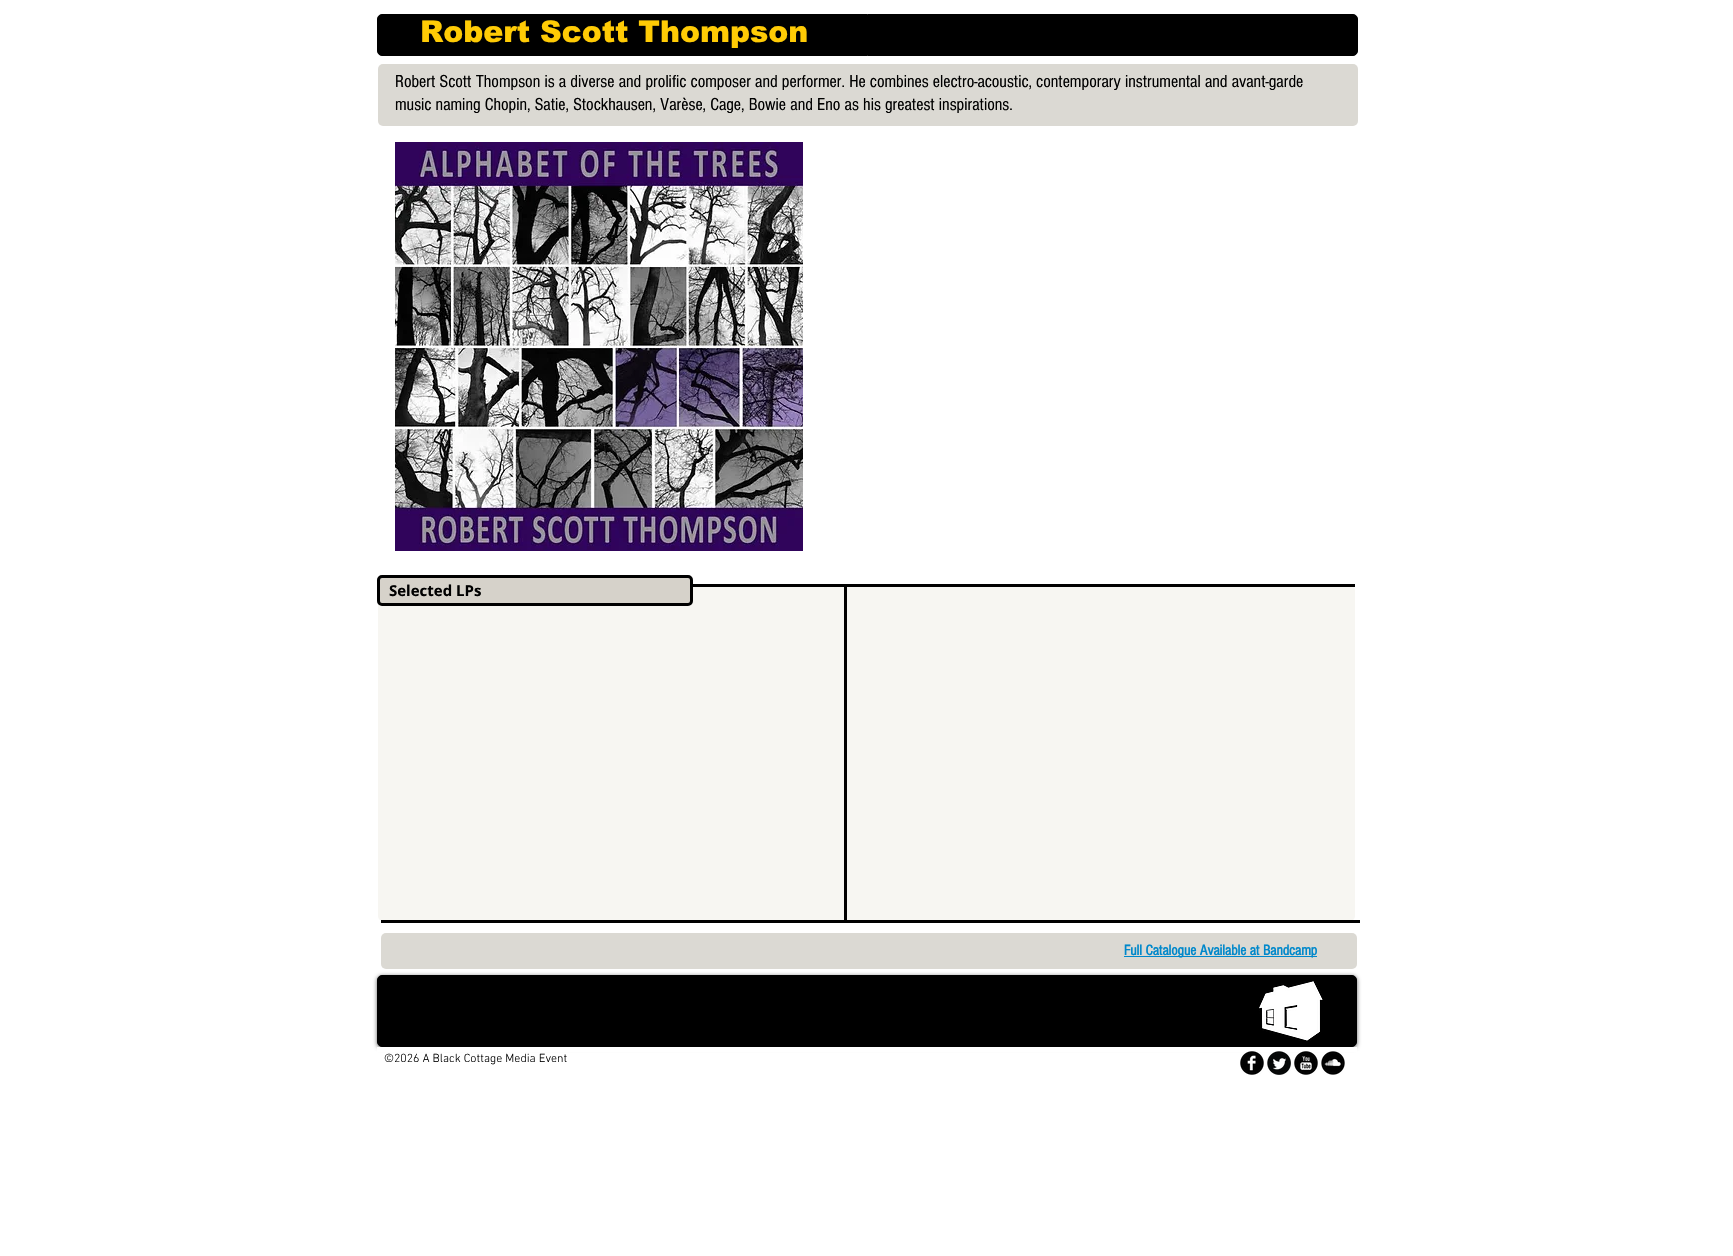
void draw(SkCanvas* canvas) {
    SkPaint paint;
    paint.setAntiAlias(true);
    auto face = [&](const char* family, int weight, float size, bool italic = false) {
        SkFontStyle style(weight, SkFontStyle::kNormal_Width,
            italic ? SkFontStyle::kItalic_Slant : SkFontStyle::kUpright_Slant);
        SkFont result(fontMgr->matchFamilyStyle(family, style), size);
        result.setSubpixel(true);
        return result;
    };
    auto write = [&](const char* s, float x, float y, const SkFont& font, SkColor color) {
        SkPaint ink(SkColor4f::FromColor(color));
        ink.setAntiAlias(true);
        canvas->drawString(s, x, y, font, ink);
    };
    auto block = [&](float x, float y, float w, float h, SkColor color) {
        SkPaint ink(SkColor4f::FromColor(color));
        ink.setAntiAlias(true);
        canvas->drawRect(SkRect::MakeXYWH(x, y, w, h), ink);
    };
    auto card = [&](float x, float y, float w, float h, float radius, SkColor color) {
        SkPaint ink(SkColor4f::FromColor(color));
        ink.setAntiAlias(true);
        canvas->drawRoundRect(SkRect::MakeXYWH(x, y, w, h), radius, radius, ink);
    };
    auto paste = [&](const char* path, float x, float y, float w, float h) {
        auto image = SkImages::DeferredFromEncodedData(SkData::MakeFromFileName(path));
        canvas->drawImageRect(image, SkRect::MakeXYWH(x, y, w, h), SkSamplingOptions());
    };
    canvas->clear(SK_ColorWHITE);
    paint.setColor(SK_ColorBLACK);
    canvas->drawRoundRect(SkRect::MakeXYWH(377.5f, 14.5f, 980, 41), 4.5f, 4.5f, paint);
    paint.setStyle(SkPaint::kStroke_Style);
    paint.setStrokeWidth(1);
    canvas->drawRoundRect(SkRect::MakeXYWH(377.5f, 14.5f, 980, 41), 4.5f, 4.5f, paint);
    auto kFont1 = face("arial", 900, 30);
    write("Robert Scott Thompson", 420, 42, kFont1, SkColorSetRGB(255, 203, 5));
    card(378, 64, 980, 62, 5, SkColorSetRGB(219, 217, 211));
    auto kFont2 = face("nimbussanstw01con", 400, 18);
    write("Robert Scott Thompson is a diverse and prolific composer and performer. He combines electro-acoustic, contemporary instrumental and avant-garde", 395, 87, kFont2, SK_ColorBLACK);
    write("music naming Chopin, Satie, Stockhausen, Varèse, Cage, Bowie and Eno as his greatest inspirations.", 395, 110, kFont2, SK_ColorBLACK);
    paste("pic1.png", 395, 142, 408, 409);
    card(378, 585, 977, 336, 5, SkColorSetRGB(247, 246, 242));
    block(844, 585, 3, 335, SK_ColorBLACK);
    block(687, 584, 668, 3, SK_ColorBLACK);
    paint.setStyle(SkPaint::kFill_Style);
    paint.setColor(SkColorSetRGB(214, 210, 202));
    canvas->drawRoundRect(SkRect::MakeXYWH(378.5f, 576.5f, 313, 28), 3.5f, 3.5f, paint);
    paint.setStyle(SkPaint::kStroke_Style);
    paint.setStrokeWidth(3);
    paint.setColor(SK_ColorBLACK);
    canvas->drawRoundRect(SkRect::MakeXYWH(378.5f, 576.5f, 313, 28), 3.5f, 3.5f, paint);
    auto kFont3 = face("Open Sans", 700, 15);
    write("Selected LPs", 389, 596, kFont3, SK_ColorBLACK);
    block(381, 920, 979, 3, SK_ColorBLACK);
    card(381, 933, 976, 36, 5, SkColorSetRGB(219, 217, 211));
    block(1124, 956, 193, 1, SkColorSetRGB(0, 136, 203));
    auto kFont4 = face("nimbussanstw01con", 700, 15);
    write("Full Catalogue Available at Bandcamp", 1124, 955, kFont4, SkColorSetRGB(0, 136, 203));
    paint.setStyle(SkPaint::kFill_Style);
    paint.setColor(SkColorSetARGB(153, 0, 0, 0));
    paint.setMaskFilter(SkMaskFilter::MakeBlur(kNormal_SkBlurStyle, 2));
    canvas->drawRoundRect(SkRect::MakeXYWH(377, 976, 980, 72), 5, 5, paint);
    paint.setMaskFilter(nullptr);
    paint.setColor(SK_ColorBLACK);
    canvas->drawRoundRect(SkRect::MakeXYWH(377.5f, 975.5f, 979, 71), 4.5f, 4.5f, paint);
    paint.setStyle(SkPaint::kStroke_Style);
    paint.setStrokeWidth(1);
    canvas->drawRoundRect(SkRect::MakeXYWH(377.5f, 975.5f, 979, 71), 4.5f, 4.5f, paint);
    paste("pic2.png", 1259, 981, 64, 60);
    block(377, 1047, 980, 5, SK_ColorWHITE);
    auto kFont5 = face("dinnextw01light", 300, 12);
    write("©2026 A Black Cottage Media Event", 384, 1062, kFont5, SK_ColorBLACK);
    paste("pic3.png", 1240, 1051, 24, 24);
    paste("pic4.png", 1267, 1051, 24, 24);
    paste("pic5.png", 1294, 1051, 24, 24);
    paste("pic6.png", 1321, 1051, 24, 24);
}
